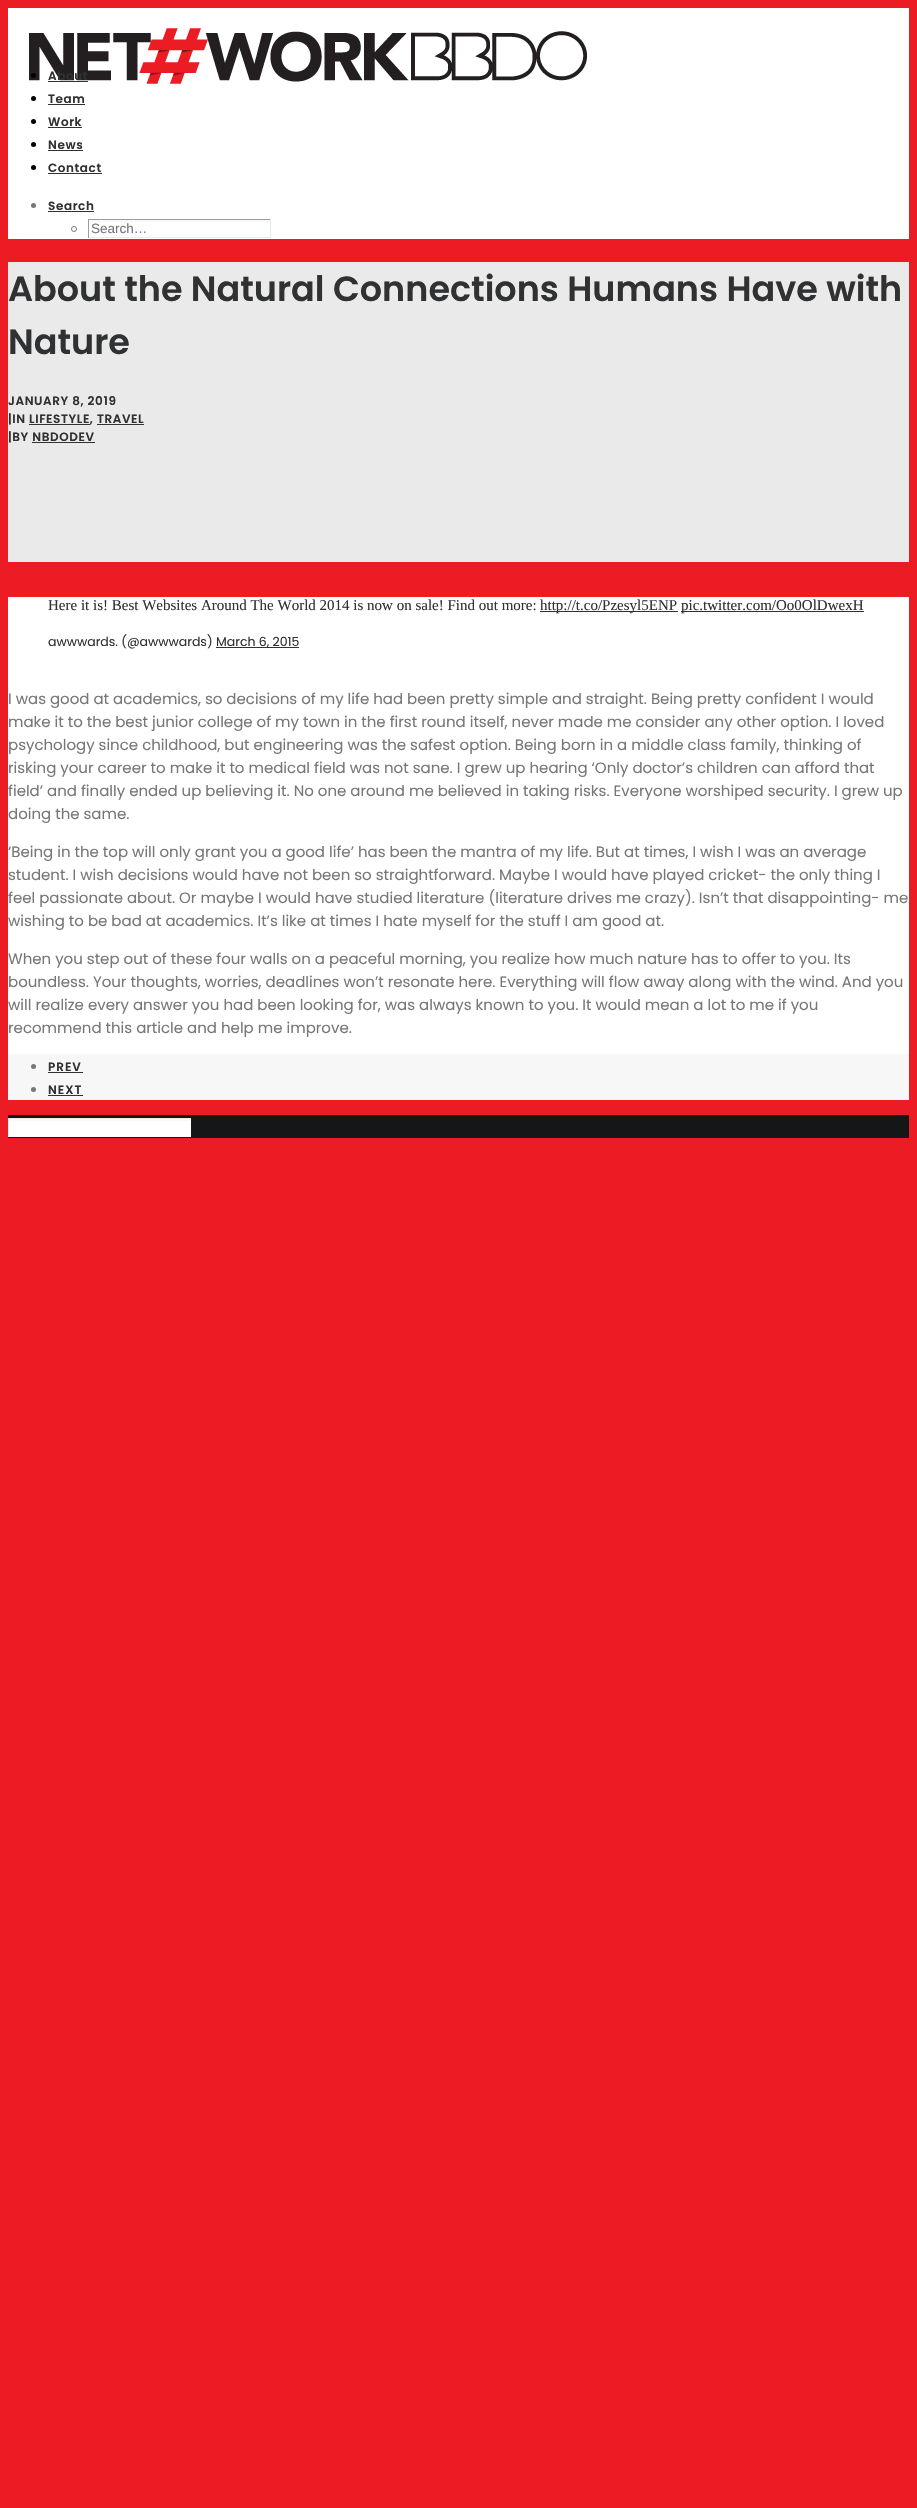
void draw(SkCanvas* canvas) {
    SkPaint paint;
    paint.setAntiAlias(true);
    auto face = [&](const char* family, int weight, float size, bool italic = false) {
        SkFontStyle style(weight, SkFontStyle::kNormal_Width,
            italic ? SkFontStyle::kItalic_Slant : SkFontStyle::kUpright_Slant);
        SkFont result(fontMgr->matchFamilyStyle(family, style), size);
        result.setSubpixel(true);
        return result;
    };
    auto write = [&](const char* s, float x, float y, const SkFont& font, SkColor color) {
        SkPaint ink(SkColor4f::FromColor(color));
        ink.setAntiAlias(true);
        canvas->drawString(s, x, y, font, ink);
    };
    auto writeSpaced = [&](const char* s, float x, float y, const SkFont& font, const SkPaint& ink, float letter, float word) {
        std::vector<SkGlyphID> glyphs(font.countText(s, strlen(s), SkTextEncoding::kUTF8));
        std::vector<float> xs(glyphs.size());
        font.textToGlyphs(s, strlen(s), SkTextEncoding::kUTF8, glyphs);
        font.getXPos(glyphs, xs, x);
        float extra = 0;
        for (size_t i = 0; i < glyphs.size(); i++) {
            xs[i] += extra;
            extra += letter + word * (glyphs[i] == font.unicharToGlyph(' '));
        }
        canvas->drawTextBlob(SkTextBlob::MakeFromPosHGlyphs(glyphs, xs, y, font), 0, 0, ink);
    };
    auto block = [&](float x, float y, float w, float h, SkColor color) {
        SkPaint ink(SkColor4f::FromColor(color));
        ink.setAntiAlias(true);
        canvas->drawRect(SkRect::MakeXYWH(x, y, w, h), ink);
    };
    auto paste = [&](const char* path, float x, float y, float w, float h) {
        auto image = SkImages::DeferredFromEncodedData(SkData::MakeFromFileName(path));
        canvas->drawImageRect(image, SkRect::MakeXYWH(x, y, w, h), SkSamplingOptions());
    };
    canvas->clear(SkColorSetRGB(236, 28, 36));
    block(8, 8, 901, 231, SK_ColorWHITE);
    paste("pic1.png", 29, 28, 558, 56);
    paint.setColor(SK_ColorBLACK);
    canvas->drawCircle(33.5f, 75.5f, 2.5f, paint);
    auto kFont1 = face("Poppins", 600, 12);
    paint.setColor(SkColorSetRGB(48, 49, 51));
    writeSpaced("About", 48, 80, kFont1, paint, 0.6f, 0);
    block(48, 81, 40, 1, SkColorSetRGB(48, 49, 51));
    paint.setColor(SK_ColorBLACK);
    canvas->drawCircle(33.5f, 98.5f, 2.5f, paint);
    paint.setColor(SkColorSetRGB(48, 49, 51));
    writeSpaced("Team", 48, 103, kFont1, paint, 0.6f, 0);
    block(48, 104, 37, 1, SkColorSetRGB(48, 49, 51));
    paint.setColor(SK_ColorBLACK);
    canvas->drawCircle(33.5f, 121.5f, 2.5f, paint);
    paint.setColor(SkColorSetRGB(48, 49, 51));
    writeSpaced("Work", 48, 126, kFont1, paint, 0.6f, 0);
    block(48, 127, 34, 1, SkColorSetRGB(48, 49, 51));
    paint.setColor(SK_ColorBLACK);
    canvas->drawCircle(33.5f, 144.5f, 2.5f, paint);
    paint.setColor(SkColorSetRGB(48, 49, 51));
    writeSpaced("News", 48, 149, kFont1, paint, 0.6f, 0);
    block(48, 150, 35, 1, SkColorSetRGB(48, 49, 51));
    paint.setColor(SK_ColorBLACK);
    canvas->drawCircle(33.5f, 167.5f, 2.5f, paint);
    paint.setColor(SkColorSetRGB(48, 49, 51));
    writeSpaced("Contact", 48, 172, kFont1, paint, 0.6f, 0);
    block(48, 173, 54, 1, SkColorSetRGB(48, 49, 51));
    paint.setColor(SkColorSetRGB(119, 119, 119));
    canvas->drawCircle(33.5f, 205.5f, 2.5f, paint);
    paint.setColor(SkColorSetRGB(48, 49, 51));
    writeSpaced("Search", 48, 210, kFont1, paint, 0.6f, 0);
    block(48, 211, 46, 1, SkColorSetRGB(48, 49, 51));
    paint.setStyle(SkPaint::kStroke_Style);
    paint.setStrokeWidth(1);
    paint.setColor(SkColorSetRGB(119, 119, 119));
    canvas->drawCircle(74, 229, 2.5f, paint);
    block(89, 220, 181, 2, SkColorSetRGB(249, 249, 249));
    block(88, 219, 183, 1, SkColorSetRGB(156, 156, 156));
    block(270, 219, 1, 19, SkColorSetRGB(234, 234, 234));
    block(88, 237, 183, 1, SkColorSetRGB(234, 234, 234));
    block(88, 219, 1, 19, SkColorSetRGB(156, 156, 156));
    auto kFont2 = face("Liberation Sans", 400, 13.5f);
    write("Search…", 91, 233, kFont2, SkColorSetRGB(119, 119, 119));
    block(8, 262, 901, 300, SkColorSetRGB(234, 234, 234));
    auto kFont3 = face("Poppins", 600, 35);
    write("About the Natural Connections Humans Have with", 8, 301, kFont3, SkColorSetRGB(48, 49, 51));
    write("Nature", 8, 354, kFont3, SkColorSetRGB(48, 49, 51));
    paint.setStyle(SkPaint::kFill_Style);
    paint.setColor(SkColorSetRGB(48, 49, 51));
    writeSpaced("JANUARY 8, 2019", 8, 405, kFont1, paint, 0.6f, 0);
    writeSpaced("|IN LIFESTYLE, TRAVEL", 8, 423, kFont1, paint, 0.6f, 0);
    block(29, 424, 61, 1, SkColorSetRGB(48, 49, 51));
    block(97, 424, 47, 1, SkColorSetRGB(48, 49, 51));
    writeSpaced("|BY NBDODEV", 8, 441, kFont1, paint, 0.6f, 0);
    block(32, 442, 63, 1, SkColorSetRGB(48, 49, 51));
    block(8, 597, 901, 457, SK_ColorWHITE);
    auto kFont4 = face("Liberation Serif", 400, 15);
    write("Here it is! Best Websites Around The World 2014 is now on sale! Find out more:", 48, 610, kFont4, SkColorSetRGB(48, 49, 51));
    block(540, 611, 138, 1, SkColorSetRGB(48, 49, 51));
    write("http://t.co/Pzesyl5ENP", 540, 610, kFont4, SkColorSetRGB(48, 49, 51));
    block(681, 611, 183, 1, SkColorSetRGB(48, 49, 51));
    write("pic.twitter.com/Oo0OlDwexH", 681, 610, kFont4, SkColorSetRGB(48, 49, 51));
    auto kFont5 = face("Poppins", 400, 12.5f);
    write("awwwards. (@awwwards)", 48, 646, kFont5, SkColorSetRGB(48, 49, 51));
    block(216, 647, 83, 1, SkColorSetRGB(48, 49, 51));
    write("March 6, 2015", 216, 646, kFont5, SkColorSetRGB(48, 49, 51));
    auto kFont6 = face("Poppins", 400, 15);
    write("I was good at academics, so decisions of my life had been pretty simple and straight. Being pretty confident I would", 8, 704, kFont6, SkColorSetRGB(119, 119, 119));
    write("make it to the best junior college of my town in the first round itself, never made me consider any other option. I loved", 8, 727, kFont6, SkColorSetRGB(119, 119, 119));
    write("psychology since childhood, but engineering was the safest option. Being born in a middle class family, thinking of", 8, 750, kFont6, SkColorSetRGB(119, 119, 119));
    write("risking your career to make it to medical field was not sane. I grew up hearing ‘Only doctor’s children can afford that", 8, 773, kFont6, SkColorSetRGB(119, 119, 119));
    write("field’ and finally ended up believing it. No one around me believed in taking risks. Everyone worshiped security. I grew up", 8, 796, kFont6, SkColorSetRGB(119, 119, 119));
    write("doing the same.", 8, 819, kFont6, SkColorSetRGB(119, 119, 119));
    write("‘Being in the top will only grant you a good life’ has been the mantra of my life. But at times, I wish I was an average", 8, 857, kFont6, SkColorSetRGB(119, 119, 119));
    write("student. I wish decisions would have not been so straightforward. Maybe I would have played cricket- the only thing I", 8, 880, kFont6, SkColorSetRGB(119, 119, 119));
    write("feel passionate about. Or maybe I would have studied literature (literature drives me crazy). Isn’t that disappointing- me", 8, 903, kFont6, SkColorSetRGB(119, 119, 119));
    write("wishing to be bad at academics. It’s like at times I hate myself for the stuff I am good at.", 8, 926, kFont6, SkColorSetRGB(119, 119, 119));
    write("When you step out of these four walls on a peaceful morning, you realize how much nature has to offer to you. Its", 8, 964, kFont6, SkColorSetRGB(119, 119, 119));
    write("boundless. Your thoughts, worries, deadlines won’t resonate here. Everything will flow away along with the wind. And you", 8, 987, kFont6, SkColorSetRGB(119, 119, 119));
    write("will realize every answer you had been looking for, was always known to you. It would mean a lot to me if you", 8, 1010, kFont6, SkColorSetRGB(119, 119, 119));
    write("recommend this article and help me improve.", 8, 1033, kFont6, SkColorSetRGB(119, 119, 119));
    block(8, 1054, 901, 46, SkColorSetRGB(247, 247, 247));
    paint.setColor(SkColorSetRGB(119, 119, 119));
    canvas->drawCircle(33.5f, 1066.5f, 2.5f, paint);
    paint.setColor(SkColorSetRGB(48, 49, 51));
    writeSpaced("PREV", 48, 1071, kFont1, paint, 1, 0);
    block(48, 1072, 35, 1, SkColorSetRGB(48, 49, 51));
    paint.setColor(SkColorSetRGB(119, 119, 119));
    canvas->drawCircle(33.5f, 1089.5f, 2.5f, paint);
    paint.setColor(SkColorSetRGB(48, 49, 51));
    writeSpaced("NEXT", 48, 1094, kFont1, paint, 1, 0);
    block(48, 1095, 35, 1, SkColorSetRGB(48, 49, 51));
    block(8, 1115, 901, 23, SkColorSetRGB(20, 22, 24));
    block(8, 1118, 183, 19, SK_ColorWHITE);
    block(9, 1119, 181, 2, SkColorSetRGB(249, 249, 249));
    paint.setColor(SkColorSetRGB(234, 234, 234));
    canvas->drawPath(SkPathBuilder().moveTo(8, 1118).lineTo(191, 1118).lineTo(190, 1119).lineTo(9, 1119).close().detach(), paint);
    paint.setColor(SkColorSetARGB(64, 170, 170, 170));
    canvas->drawPath(SkPathBuilder().moveTo(8, 1137).lineTo(8, 1118).lineTo(9, 1119).lineTo(9, 1136).close().detach(), paint);
}
